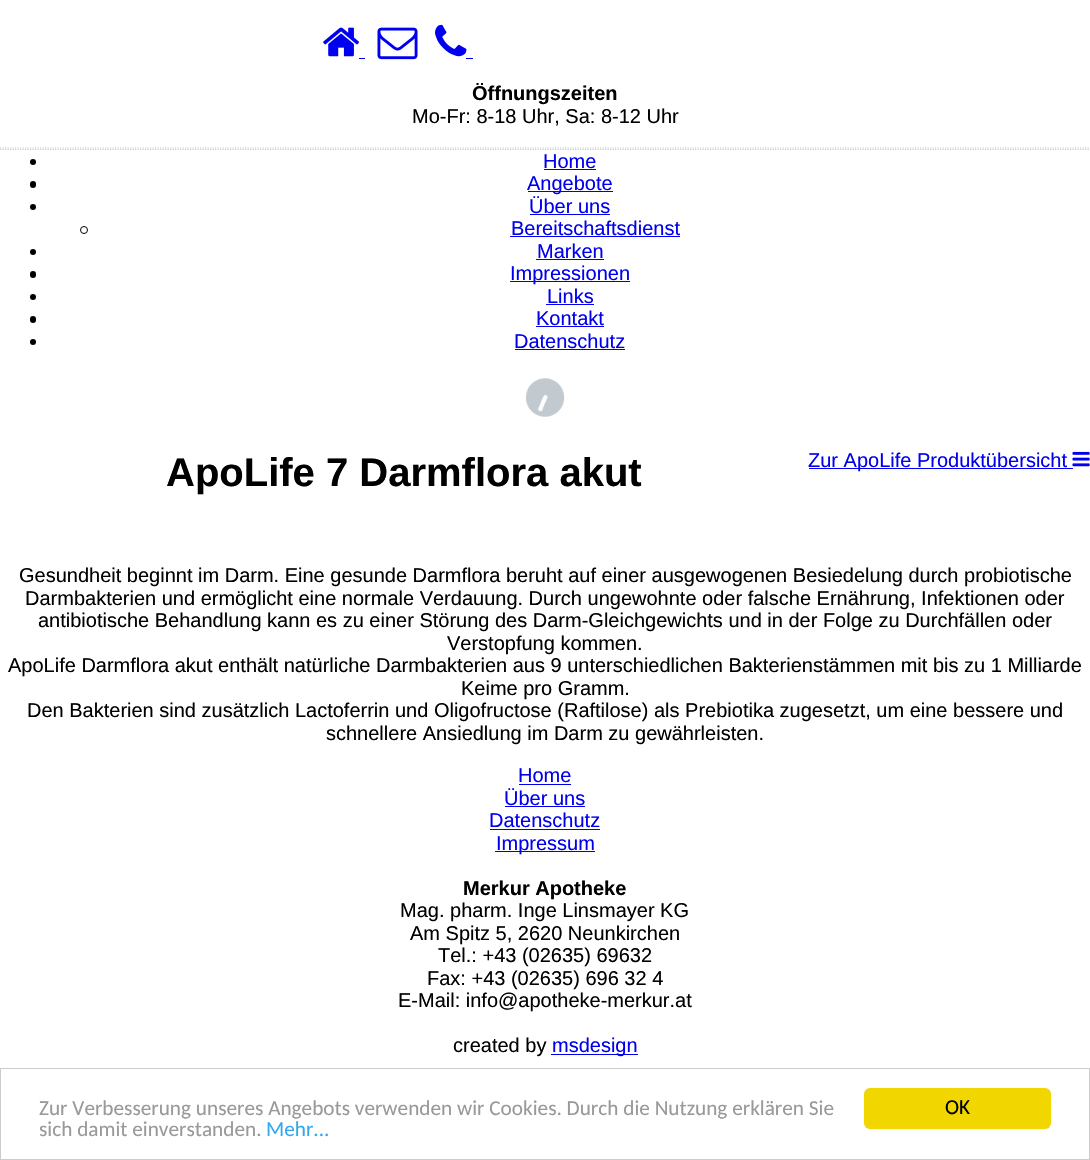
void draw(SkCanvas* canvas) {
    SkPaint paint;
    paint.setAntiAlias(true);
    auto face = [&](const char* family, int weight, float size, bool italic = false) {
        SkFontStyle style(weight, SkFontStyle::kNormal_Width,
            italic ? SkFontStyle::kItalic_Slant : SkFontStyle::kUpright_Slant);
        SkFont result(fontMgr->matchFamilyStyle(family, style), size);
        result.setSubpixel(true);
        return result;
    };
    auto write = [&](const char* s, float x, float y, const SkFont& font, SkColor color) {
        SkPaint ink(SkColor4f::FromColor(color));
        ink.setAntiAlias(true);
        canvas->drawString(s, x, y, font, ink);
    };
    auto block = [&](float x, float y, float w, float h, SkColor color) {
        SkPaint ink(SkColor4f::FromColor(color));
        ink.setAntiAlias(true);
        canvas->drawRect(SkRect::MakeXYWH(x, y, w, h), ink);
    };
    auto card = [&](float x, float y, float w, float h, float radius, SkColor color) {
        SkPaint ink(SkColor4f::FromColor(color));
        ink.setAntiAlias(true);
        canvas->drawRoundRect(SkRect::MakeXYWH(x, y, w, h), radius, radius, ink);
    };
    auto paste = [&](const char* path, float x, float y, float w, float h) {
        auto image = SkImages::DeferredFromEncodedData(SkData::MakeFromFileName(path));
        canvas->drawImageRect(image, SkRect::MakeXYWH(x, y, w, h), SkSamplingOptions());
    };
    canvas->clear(SK_ColorWHITE);
    paste("pic1.png", 323, 27, 36, 30);
    block(359, 58, 6, 1, SkColorSetRGB(0, 0, 238));
    paste("pic2.png", 377, 27, 41, 33);
    paste("pic3.png", 435, 24, 32, 33);
    block(466, 58, 7, 1, SkColorSetRGB(0, 0, 238));
    auto kFont1 = face("Liberation Sans", 700, 20);
    write("Öffnungszeiten", 472, 100, kFont1, SK_ColorBLACK);
    auto kFont2 = face("Liberation Sans", 400, 20);
    write("Mo-Fr: 8-18 Uhr, Sa: 8-12 Uhr", 412, 123, kFont2, SK_ColorBLACK);
    paint.setStyle(SkPaint::kStroke_Style);
    paint.setStrokeWidth(1.2f);
    paint.setColor(SkColorSetRGB(204, 204, 204));
    paint.setPathEffect(SkDashPathEffect::Make({{1.25f, 1.25f}}, 0));
    canvas->drawPath(SkPathBuilder().moveTo(0, 148).lineTo(1090, 148).detach(), paint);
    paint.setPathEffect(nullptr);
    paint.setPathEffect(SkDashPathEffect::Make({{1.25f, 1.25f}}, 0));
    canvas->drawPath(SkPathBuilder().moveTo(0, 149.5f).lineTo(1090, 149.5f).detach(), paint);
    paint.setPathEffect(nullptr);
    paint.setStyle(SkPaint::kFill_Style);
    paint.setColor(SK_ColorBLACK);
    canvas->drawCircle(33, 162, 3, paint);
    write("Home", 543, 168, kFont2, SkColorSetRGB(0, 0, 238));
    block(544, 169, 52, 1, SkColorSetRGB(0, 0, 238));
    card(30, 181, 6, 7, 3, SK_ColorBLACK);
    block(528, 191, 85, 1, SkColorSetRGB(0, 0, 238));
    write("Angebote", 527, 190, kFont2, SkColorSetRGB(0, 0, 238));
    canvas->drawCircle(33, 207, 3, paint);
    write("Über uns", 529, 213, kFont2, SkColorSetRGB(0, 0, 238));
    block(530, 214, 80, 1, SkColorSetRGB(0, 0, 238));
    paint.setStyle(SkPaint::kStroke_Style);
    paint.setStrokeWidth(1);
    canvas->drawCircle(84, 230, 3.5f, paint);
    write("Bereitschaftsdienst", 511, 235, kFont2, SkColorSetRGB(0, 0, 238));
    block(510, 236, 170, 1, SkColorSetRGB(0, 0, 238));
    paint.setStyle(SkPaint::kFill_Style);
    canvas->drawCircle(33, 252, 3, paint);
    write("Marken", 537, 258, kFont2, SkColorSetRGB(0, 0, 238));
    block(536, 259, 68, 1, SkColorSetRGB(0, 0, 238));
    card(30, 271, 6, 7, 3, SK_ColorBLACK);
    block(510, 281, 120, 1, SkColorSetRGB(0, 0, 238));
    write("Impressionen", 510, 280, kFont2, SkColorSetRGB(0, 0, 238));
    canvas->drawCircle(33, 297, 3, paint);
    write("Links", 547, 303, kFont2, SkColorSetRGB(0, 0, 238));
    block(546, 304, 48, 1, SkColorSetRGB(0, 0, 238));
    card(30, 316, 6, 7, 3, SK_ColorBLACK);
    write("Kontakt", 536, 325, kFont2, SkColorSetRGB(0, 0, 238));
    block(536, 326, 68, 1, SkColorSetRGB(0, 0, 238));
    canvas->drawCircle(33, 342, 3, paint);
    write("Datenschutz", 514, 348, kFont2, SkColorSetRGB(0, 0, 238));
    block(515, 349, 110, 1, SkColorSetRGB(0, 0, 238));
    paste("pic4.png", 526, 378, 39, 39);
    block(809, 468, 264, 1, SkColorSetRGB(0, 0, 238));
    write("Zur ApoLife Produktübersicht", 808, 467, kFont2, SkColorSetRGB(0, 0, 238));
    paste("pic5.png", 1072, 451, 18, 16);
    auto kFont3 = face("Liberation Sans", 700, 40);
    write("ApoLife 7 Darmflora akut", 166, 486, kFont3, SK_ColorBLACK);
    write("Gesundheit beginnt im Darm. Eine gesunde Darmflora beruht auf einer ausgewogenen Besiedelung durch probiotische", 19, 582, kFont2, SK_ColorBLACK);
    write("Darmbakterien und ermöglicht eine normale Verdauung. Durch ungewohnte oder falsche Ernährung, Infektionen oder", 25, 605, kFont2, SK_ColorBLACK);
    write("antibiotische Behandlung kann es zu einer Störung des Darm-Gleichgewichts und in der Folge zu Durchfällen oder", 38, 627, kFont2, SK_ColorBLACK);
    write("Verstopfung kommen.", 447, 650, kFont2, SK_ColorBLACK);
    write("ApoLife Darmflora akut enthält natürliche Darmbakterien aus 9 unterschiedlichen Bakterienstämmen mit bis zu 1 Milliarde", 8, 672, kFont2, SK_ColorBLACK);
    write("Keime pro Gramm.", 461, 695, kFont2, SK_ColorBLACK);
    write("Den Bakterien sind zusätzlich Lactoferrin und Oligofructose (Raftilose) als Prebiotika zugesetzt, um eine bessere und", 27, 717, kFont2, SK_ColorBLACK);
    write("schnellere Ansiedlung im Darm zu gewährleisten.", 326, 740, kFont2, SK_ColorBLACK);
    write("Home", 518, 782, kFont2, SkColorSetRGB(0, 0, 238));
    block(519, 784, 52, 1, SkColorSetRGB(0, 0, 238));
    write("Über uns", 504, 805, kFont2, SkColorSetRGB(0, 0, 238));
    block(505, 806, 80, 1, SkColorSetRGB(0, 0, 238));
    write("Datenschutz", 489, 827, kFont2, SkColorSetRGB(0, 0, 238));
    block(490, 829, 110, 1, SkColorSetRGB(0, 0, 238));
    block(495, 851, 100, 1, SkColorSetRGB(0, 0, 238));
    write("Impressum", 496, 850, kFont2, SkColorSetRGB(0, 0, 238));
    write("Merkur Apotheke", 463, 895, kFont1, SK_ColorBLACK);
    write("Mag. pharm. Inge Linsmayer KG", 400, 917, kFont2, SK_ColorBLACK);
    write("Am Spitz 5, 2620 Neunkirchen", 410, 940, kFont2, SK_ColorBLACK);
    write("Tel.: +43 (02635) 69632", 438, 962, kFont2, SK_ColorBLACK);
    write("Fax: +43 (02635) 696 32 4", 427, 985, kFont2, SK_ColorBLACK);
    write("E-Mail: info@apotheke-merkur.at", 398, 1007, kFont2, SK_ColorBLACK);
    write("created by", 453, 1052, kFont2, SK_ColorBLACK);
    block(551, 1054, 87, 1, SkColorSetRGB(0, 0, 238));
    write("msdesign", 552, 1052, kFont2, SkColorSetRGB(0, 0, 238));
    paint.setStyle(SkPaint::kStroke_Style);
    paint.setColor(SkColorSetRGB(204, 204, 204));
    canvas->drawRect(SkRect::MakeXYWH(0.5f, 1068.5f, 1089, 91), paint);
    auto kFont4 = face("Carlito", 400, 21.25f);
    write("Zur Verbesserung unseres Angebots verwenden wir Cookies. Durch die Nutzung erklären Sie", 39, 1115, kFont4, SkColorSetRGB(153, 153, 153));
    write("sich damit einverstanden.", 39, 1136, kFont4, SkColorSetRGB(153, 153, 153));
    write("Mehr...", 266, 1136, kFont4, SkColorSetRGB(49, 168, 240));
    card(864, 1088, 187, 41, 6, SkColorSetRGB(241, 214, 0));
    write("OK", 945, 1114, kFont4, SK_ColorBLACK);
}
